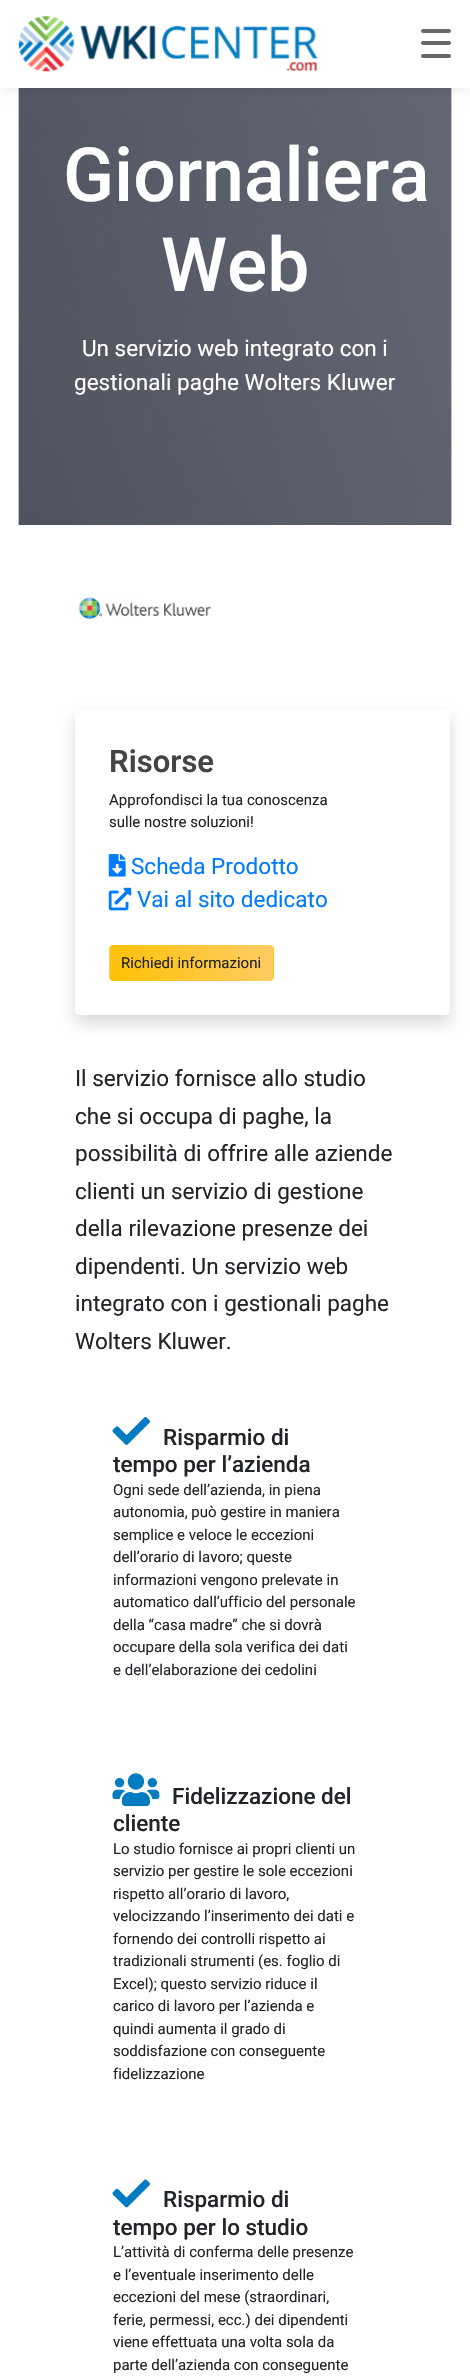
void draw(SkCanvas* canvas) {
    SkPaint paint;
    paint.setAntiAlias(true);
    auto face = [&](const char* family, int weight, float size, bool italic = false) {
        SkFontStyle style(weight, SkFontStyle::kNormal_Width,
            italic ? SkFontStyle::kItalic_Slant : SkFontStyle::kUpright_Slant);
        SkFont result(fontMgr->matchFamilyStyle(family, style), size);
        result.setSubpixel(true);
        return result;
    };
    auto write = [&](const char* s, float x, float y, const SkFont& font, SkColor color) {
        SkPaint ink(SkColor4f::FromColor(color));
        ink.setAntiAlias(true);
        canvas->drawString(s, x, y, font, ink);
    };
    auto block = [&](float x, float y, float w, float h, SkColor color) {
        SkPaint ink(SkColor4f::FromColor(color));
        ink.setAntiAlias(true);
        canvas->drawRect(SkRect::MakeXYWH(x, y, w, h), ink);
    };
    auto card = [&](float x, float y, float w, float h, float radius, SkColor color) {
        SkPaint ink(SkColor4f::FromColor(color));
        ink.setAntiAlias(true);
        canvas->drawRoundRect(SkRect::MakeXYWH(x, y, w, h), radius, radius, ink);
    };
    auto paste = [&](const char* path, float x, float y, float w, float h) {
        auto image = SkImages::DeferredFromEncodedData(SkData::MakeFromFileName(path));
        canvas->drawImageRect(image, SkRect::MakeXYWH(x, y, w, h), SkSamplingOptions());
    };
    canvas->clear(SK_ColorWHITE);
    paste("pic2.png", 18, 88, 434, 437);
    paint.setColor(SkColorSetARGB(26, 0, 0, 0));
    paint.setMaskFilter(SkMaskFilter::MakeBlur(kNormal_SkBlurStyle, 6));
    canvas->drawRect(SkRect::MakeXYWH(0, 0, 470, 88), paint);
    paint.setMaskFilter(nullptr);
    block(0, 0, 470, 88, SK_ColorWHITE);
    paste("pic1.png", 18, 16, 300, 56);
    card(421, 41, 30, 4, 2, SkColorSetRGB(104, 104, 104));
    card(421, 29, 30, 4, 2, SkColorSetRGB(104, 104, 104));
    card(421, 54, 30, 4, 2, SkColorSetRGB(104, 104, 104));
    auto kFont1 = face("Roboto", 500, 75);
    write("Giornaliera", 63, 201, kFont1, SK_ColorWHITE);
    write("Web", 161, 291, kFont1, SK_ColorWHITE);
    auto kFont2 = face("Roboto", 400, 22.5f);
    write("Un servizio web integrato con i", 82, 356, kFont2, SK_ColorWHITE);
    write("gestionali paghe Wolters Kluwer", 74, 390, kFont2, SK_ColorWHITE);
    paste("pic3.png", 78, 597, 134, 22);
    paint.setColor(SkColorSetARGB(38, 0, 0, 0));
    paint.setMaskFilter(SkMaskFilter::MakeBlur(kNormal_SkBlurStyle, 7.5f));
    canvas->drawRoundRect(SkRect::MakeXYWH(75, 718, 375, 305), 4, 4, paint);
    paint.setMaskFilter(nullptr);
    card(75, 710, 375, 305, 4, SK_ColorWHITE);
    auto kFont3 = face("Roboto", 600, 31);
    write("Risorse", 109, 772, kFont3, SkColorSetRGB(68, 68, 68));
    auto kFont4 = face("Roboto", 400, 15);
    write("Approfondisci la tua conoscenza", 109, 805, kFont4, SkColorSetRGB(33, 37, 41));
    write("sulle nostre soluzioni!", 109, 827, kFont4, SkColorSetRGB(33, 37, 41));
    paste("pic4.png", 108, 854, 18, 23);
    write("Scheda Prodotto", 131, 874, kFont2, SkColorSetRGB(0, 123, 255));
    paste("pic5.png", 108, 887, 24, 24);
    write("Vai al sito dedicato", 137, 907, kFont2, SkColorSetRGB(0, 123, 255));
    canvas->save();
    canvas->clipPath(SkPathBuilder().moveTo(113, 945).lineTo(270, 945).cubicTo(272, 945, 274, 947, 274, 949).lineTo(274, 977).cubicTo(274, 979, 272, 981, 270, 981).lineTo(113, 981).cubicTo(111, 981, 109, 979, 109, 977).lineTo(109, 949).cubicTo(109, 947, 111, 945, 113, 945).close().detach(), true);
    {
        const SkColor colors[] = {SkColorSetRGB(254, 193, 5), SkColorSetRGB(255, 204, 101)};
        const float stops[] = {0, 1};
        const SkPoint ends[] = {{114, 957}, {268, 901}};
        paint.setShader(SkGradientShader::MakeLinear(ends, colors, stops, 2, SkTileMode::kClamp));
        paint.setAlpha(255);
    }
    canvas->drawRect(SkRect::MakeXYWH(110, 945, 163, 1), paint);
    {
        const SkColor colors[] = {SkColorSetRGB(254, 193, 5), SkColorSetRGB(255, 204, 101)};
        const float stops[] = {0, 1};
        const SkPoint ends[] = {{-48, 991}, {106, 935}};
        paint.setShader(SkGradientShader::MakeLinear(ends, colors, stops, 2, SkTileMode::kClamp));
        paint.setAlpha(255);
    }
    canvas->drawRect(SkRect::MakeXYWH(109, 946, 1, 34), paint);
    {
        const SkColor colors[] = {SkColorSetRGB(254, 193, 5), SkColorSetRGB(255, 204, 101)};
        const float stops[] = {0, 1};
        const SkPoint ends[] = {{114, 991}, {268, 935}};
        paint.setShader(SkGradientShader::MakeLinear(ends, colors, stops, 2, SkTileMode::kClamp));
        paint.setAlpha(255);
    }
    canvas->drawRect(SkRect::MakeXYWH(110, 946, 163, 34), paint);
    {
        const SkColor colors[] = {SkColorSetRGB(254, 193, 5), SkColorSetRGB(255, 204, 101)};
        const float stops[] = {0, 1};
        const SkPoint ends[] = {{277, 991}, {431, 935}};
        paint.setShader(SkGradientShader::MakeLinear(ends, colors, stops, 2, SkTileMode::kClamp));
        paint.setAlpha(255);
    }
    canvas->drawRect(SkRect::MakeXYWH(273, 946, 1, 34), paint);
    {
        const SkColor colors[] = {SkColorSetRGB(254, 193, 5), SkColorSetRGB(255, 204, 101)};
        const float stops[] = {0, 1};
        const SkPoint ends[] = {{114, 1025}, {268, 969}};
        paint.setShader(SkGradientShader::MakeLinear(ends, colors, stops, 2, SkTileMode::kClamp));
        paint.setAlpha(255);
    }
    canvas->drawRect(SkRect::MakeXYWH(110, 980, 163, 1), paint);
    canvas->restore();
    write("Richiedi informazioni", 121, 968, kFont4, SkColorSetRGB(33, 37, 41));
    write("Il servizio fornisce allo studio", 75, 1086, kFont2, SkColorSetRGB(33, 37, 41));
    write("che si occupa di paghe, la", 75, 1124, kFont2, SkColorSetRGB(33, 37, 41));
    write("possibilità di offrire alle aziende", 75, 1161, kFont2, SkColorSetRGB(33, 37, 41));
    write("clienti un servizio di gestione", 75, 1199, kFont2, SkColorSetRGB(33, 37, 41));
    write("della rilevazione presenze dei", 75, 1236, kFont2, SkColorSetRGB(33, 37, 41));
    write("dipendenti. Un servizio web", 75, 1274, kFont2, SkColorSetRGB(33, 37, 41));
    write("integrato con i gestionali paghe", 75, 1311, kFont2, SkColorSetRGB(33, 37, 41));
    write("Wolters Kluwer.", 75, 1349, kFont2, SkColorSetRGB(33, 37, 41));
    paste("pic6.png", 112, 1417, 38, 28);
    auto kFont5 = face("Roboto", 500, 22.5f);
    write("Risparmio di", 163, 1445, kFont5, SkColorSetRGB(33, 37, 41));
    write("tempo per l’azienda", 113, 1472, kFont5, SkColorSetRGB(33, 37, 41));
    write("Ogni sede dell’azienda, in piena", 113, 1495, kFont4, SkColorSetRGB(33, 37, 41));
    write("autonomia, può gestire in maniera", 113, 1517, kFont4, SkColorSetRGB(33, 37, 41));
    write("semplice e veloce le eccezioni", 113, 1540, kFont4, SkColorSetRGB(33, 37, 41));
    write("dell’orario di lavoro; queste", 113, 1562, kFont4, SkColorSetRGB(33, 37, 41));
    write("informazioni vengono prelevate in", 113, 1585, kFont4, SkColorSetRGB(33, 37, 41));
    write("automatico dall’ufficio del personale", 113, 1607, kFont4, SkColorSetRGB(33, 37, 41));
    write("della “casa madre” che si dovrà", 113, 1630, kFont4, SkColorSetRGB(33, 37, 41));
    write("occupare della sola verifica dei dati", 113, 1652, kFont4, SkColorSetRGB(33, 37, 41));
    write("e dell’elaborazione dei cedolini", 113, 1675, kFont4, SkColorSetRGB(33, 37, 41));
    paste("pic7.png", 112, 1773, 48, 34);
    write("Fidelizzazione del", 172, 1804, kFont5, SkColorSetRGB(33, 37, 41));
    write("cliente", 113, 1831, kFont5, SkColorSetRGB(33, 37, 41));
    write("Lo studio fornisce ai propri clienti un", 113, 1854, kFont4, SkColorSetRGB(33, 37, 41));
    write("servizio per gestire le sole eccezioni", 113, 1876, kFont4, SkColorSetRGB(33, 37, 41));
    write("rispetto all’orario di lavoro,", 113, 1899, kFont4, SkColorSetRGB(33, 37, 41));
    write("velocizzando l’inserimento dei dati e", 113, 1921, kFont4, SkColorSetRGB(33, 37, 41));
    write("fornendo dei controlli rispetto ai", 113, 1944, kFont4, SkColorSetRGB(33, 37, 41));
    write("tradizionali strumenti (es. foglio di", 113, 1966, kFont4, SkColorSetRGB(33, 37, 41));
    write("Excel); questo servizio riduce il", 113, 1989, kFont4, SkColorSetRGB(33, 37, 41));
    write("carico di lavoro per l’azienda e", 113, 2011, kFont4, SkColorSetRGB(33, 37, 41));
    write("quindi aumenta il grado di", 113, 2034, kFont4, SkColorSetRGB(33, 37, 41));
    write("soddisfazione con conseguente", 113, 2056, kFont4, SkColorSetRGB(33, 37, 41));
    write("fidelizzazione", 113, 2079, kFont4, SkColorSetRGB(33, 37, 41));
    paste("pic8.png", 112, 2179, 38, 29);
    write("Risparmio di", 163, 2207, kFont5, SkColorSetRGB(33, 37, 41));
    write("tempo per lo studio", 113, 2235, kFont5, SkColorSetRGB(33, 37, 41));
    write("L’attività di conferma delle presenze", 113, 2257, kFont4, SkColorSetRGB(33, 37, 41));
    write("e l’eventuale inserimento delle", 113, 2280, kFont4, SkColorSetRGB(33, 37, 41));
    write("eccezioni del mese (straordinari,", 113, 2302, kFont4, SkColorSetRGB(33, 37, 41));
    write("ferie, permessi, ecc.) dei dipendenti", 113, 2325, kFont4, SkColorSetRGB(33, 37, 41));
    write("viene effettuata una volta sola da", 113, 2347, kFont4, SkColorSetRGB(33, 37, 41));
    write("parte dell’azienda con conseguente", 113, 2370, kFont4, SkColorSetRGB(33, 37, 41));
}
